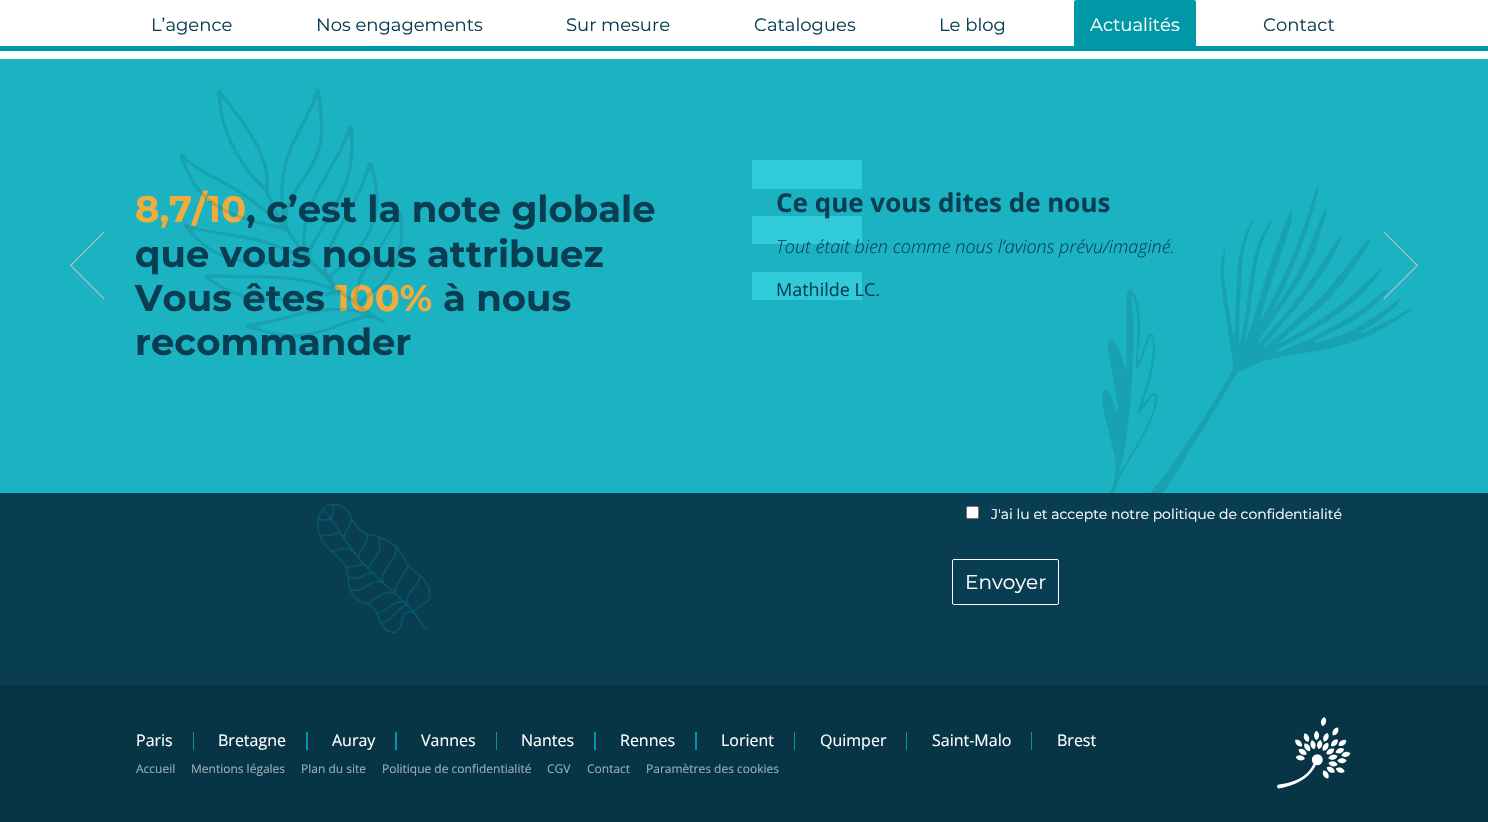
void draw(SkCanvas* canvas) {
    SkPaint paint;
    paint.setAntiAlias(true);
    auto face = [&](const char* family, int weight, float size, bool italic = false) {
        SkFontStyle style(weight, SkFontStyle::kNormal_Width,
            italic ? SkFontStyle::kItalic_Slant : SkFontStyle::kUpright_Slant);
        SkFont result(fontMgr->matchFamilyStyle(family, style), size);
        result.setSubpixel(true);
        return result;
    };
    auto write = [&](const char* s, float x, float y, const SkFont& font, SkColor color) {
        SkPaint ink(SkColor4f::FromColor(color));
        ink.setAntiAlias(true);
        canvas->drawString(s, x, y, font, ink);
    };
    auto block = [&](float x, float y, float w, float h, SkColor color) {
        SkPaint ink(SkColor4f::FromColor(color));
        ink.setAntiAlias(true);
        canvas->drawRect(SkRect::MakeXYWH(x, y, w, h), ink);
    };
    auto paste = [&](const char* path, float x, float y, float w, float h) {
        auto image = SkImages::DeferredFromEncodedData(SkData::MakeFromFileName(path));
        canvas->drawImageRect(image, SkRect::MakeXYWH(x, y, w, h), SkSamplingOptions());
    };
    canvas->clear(SkColorSetRGB(7, 53, 70));
    block(0, 0, 1488, 46, SK_ColorWHITE);
    block(0, 46, 1488, 5, SkColorSetRGB(0, 152, 167));
    auto kFont1 = face("Montserrat", 100, 18);
    write("L’agence", 151, 31, kFont1, SkColorSetRGB(9, 62, 82));
    write("Nos engagements", 316, 31, kFont1, SkColorSetRGB(9, 62, 82));
    write("Sur mesure", 566, 31, kFont1, SkColorSetRGB(9, 62, 82));
    write("Catalogues", 754, 31, kFont1, SkColorSetRGB(9, 62, 82));
    write("Le blog", 939, 31, kFont1, SkColorSetRGB(9, 62, 82));
    paint.setColor(SkColorSetRGB(0, 152, 167));
    canvas->drawPath(SkPathBuilder().moveTo(1076, 0).lineTo(1194, 0).cubicTo(1195, 0, 1196, 1, 1196, 2).lineTo(1196, 46).lineTo(1074, 46).lineTo(1074, 2).cubicTo(1074, 1, 1075, 0, 1076, 0).close().detach(), paint);
    write("Actualités", 1090, 31, kFont1, SK_ColorWHITE);
    write("Contact", 1263, 31, kFont1, SkColorSetRGB(9, 62, 82));
    block(0, 51, 1488, 8, SK_ColorWHITE);
    block(0, 59, 1488, 434, SkColorSetRGB(27, 179, 194));
    paint.setColor(SkColorSetRGB(193, 193, 193));
    canvas->drawPath(SkPathBuilder().moveTo(71, 265).lineTo(104.5f, 298.5f).lineTo(104, 299.5f).lineTo(70, 265.5f).close().detach(), paint);
    canvas->drawPath(SkPathBuilder().moveTo(104, 231.5f).lineTo(104.5f, 232.5f).lineTo(71, 266).lineTo(70, 265.5f).close().detach(), paint);
    auto kFont2 = face("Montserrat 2", 100, 37);
    write("8,7/10", 135, 222, kFont2, SkColorSetRGB(241, 172, 60));
    write(", c’est la note globale", 246, 222, kFont2, SkColorSetRGB(9, 62, 82));
    write("que vous nous attribuez", 135, 267, kFont2, SkColorSetRGB(9, 62, 82));
    write("Vous êtes", 135, 311, kFont2, SkColorSetRGB(9, 62, 82));
    write("100%", 335, 311, kFont2, SkColorSetRGB(241, 172, 60));
    write("recommander", 135, 355, kFont2, SkColorSetRGB(9, 62, 82));
    paste("pic1.png", 180, 88, 224, 250);
    write("à nous", 443, 311, kFont2, SkColorSetRGB(9, 62, 82));
    block(752, 160, 110, 29, SkColorSetRGB(49, 202, 217));
    block(752, 216, 110, 28, SkColorSetRGB(49, 202, 217));
    block(752, 272, 110, 28, SkColorSetRGB(49, 202, 217));
    paste("pic2.png", 1102, 185, 311, 308);
    auto kFont3 = face("Open Sans", 700, 26);
    write("Ce que vous dites de nous", 776, 212, kFont3, SkColorSetRGB(9, 62, 82));
    auto kFont4 = face("Open Sans", 300, 18, true);
    write("Tout était bien comme nous l’avions prévu/imaginé.", 776, 253, kFont4, SkColorSetRGB(9, 62, 82));
    auto kFont5 = face("Open Sans", 400, 18);
    write("Mathilde LC.", 776, 296, kFont5, SkColorSetRGB(9, 62, 82));
    canvas->drawPath(SkPathBuilder().moveTo(1384, 231.5f).lineTo(1418, 265.5f).lineTo(1417, 266).lineTo(1383.5f, 232.5f).close().detach(), paint);
    canvas->drawPath(SkPathBuilder().moveTo(1417, 265).lineTo(1418, 265.5f).lineTo(1384, 299.5f).lineTo(1383.5f, 298.5f).close().detach(), paint);
    block(0, 493, 1488, 192, SkColorSetRGB(9, 62, 82));
    paste("pic3.png", 317, 503, 114, 130);
    paint.setColor(SK_ColorWHITE);
    canvas->drawRoundRect(SkRect::MakeXYWH(966.5f, 506.5f, 12, 12), 1.5f, 1.5f, paint);
    paint.setStyle(SkPaint::kStroke_Style);
    paint.setStrokeWidth(1);
    paint.setColor(SkColorSetRGB(118, 118, 118));
    canvas->drawRoundRect(SkRect::MakeXYWH(966.5f, 506.5f, 12, 12), 1.5f, 1.5f, paint);
    auto kFont6 = face("Montserrat", 100, 14);
    write("J'ai lu et accepte notre politique de confidentialité", 991, 519, kFont6, SK_ColorWHITE);
    paint.setColor(SK_ColorWHITE);
    canvas->drawRoundRect(SkRect::MakeXYWH(952.5f, 559.5f, 106, 45), 1.5f, 1.5f, paint);
    auto kFont7 = face("Montserrat", 100, 20);
    write("Envoyer", 965, 589, kFont7, SK_ColorWHITE);
    auto kFont8 = face("Open Sans", 400, 16);
    write("Paris", 136, 746, kFont8, SK_ColorWHITE);
    block(193, 732, 1, 18, SkColorSetRGB(0, 152, 167));
    write("Bretagne", 218, 746, kFont8, SK_ColorWHITE);
    block(306, 732, 2, 18, SkColorSetRGB(0, 152, 167));
    write("Auray", 332, 746, kFont8, SK_ColorWHITE);
    block(395, 732, 2, 18, SkColorSetRGB(0, 152, 167));
    write("Vannes", 421, 746, kFont8, SK_ColorWHITE);
    block(496, 732, 1, 18, SkColorSetRGB(0, 152, 167));
    write("Nantes", 521, 746, kFont8, SK_ColorWHITE);
    block(594, 732, 2, 18, SkColorSetRGB(0, 152, 167));
    write("Rennes", 620, 746, kFont8, SK_ColorWHITE);
    block(695, 732, 2, 18, SkColorSetRGB(0, 152, 167));
    write("Lorient", 721, 746, kFont8, SK_ColorWHITE);
    block(794, 732, 1, 18, SkColorSetRGB(0, 152, 167));
    write("Quimper", 820, 746, kFont8, SK_ColorWHITE);
    block(906, 732, 1, 18, SkColorSetRGB(0, 152, 167));
    write("Saint-Malo", 932, 746, kFont8, SK_ColorWHITE);
    block(1031, 732, 1, 18, SkColorSetRGB(0, 152, 167));
    write("Brest", 1057, 746, kFont8, SK_ColorWHITE);
    auto kFont9 = face("Open Sans", 400, 12);
    write("Accueil", 136, 773, kFont9, SkColorSetRGB(156, 174, 181));
    write("Mentions légales", 191, 773, kFont9, SkColorSetRGB(156, 174, 181));
    write("Plan du site", 301, 773, kFont9, SkColorSetRGB(156, 174, 181));
    write("Politique de confidentialité", 382, 773, kFont9, SkColorSetRGB(156, 174, 181));
    write("CGV", 547, 773, kFont9, SkColorSetRGB(156, 174, 181));
    write("Contact", 587, 773, kFont9, SkColorSetRGB(156, 174, 181));
    write("Paramètres des cookies", 646, 773, kFont9, SkColorSetRGB(156, 174, 181));
    paste("pic4.png", 1277, 717, 74, 72);
}
